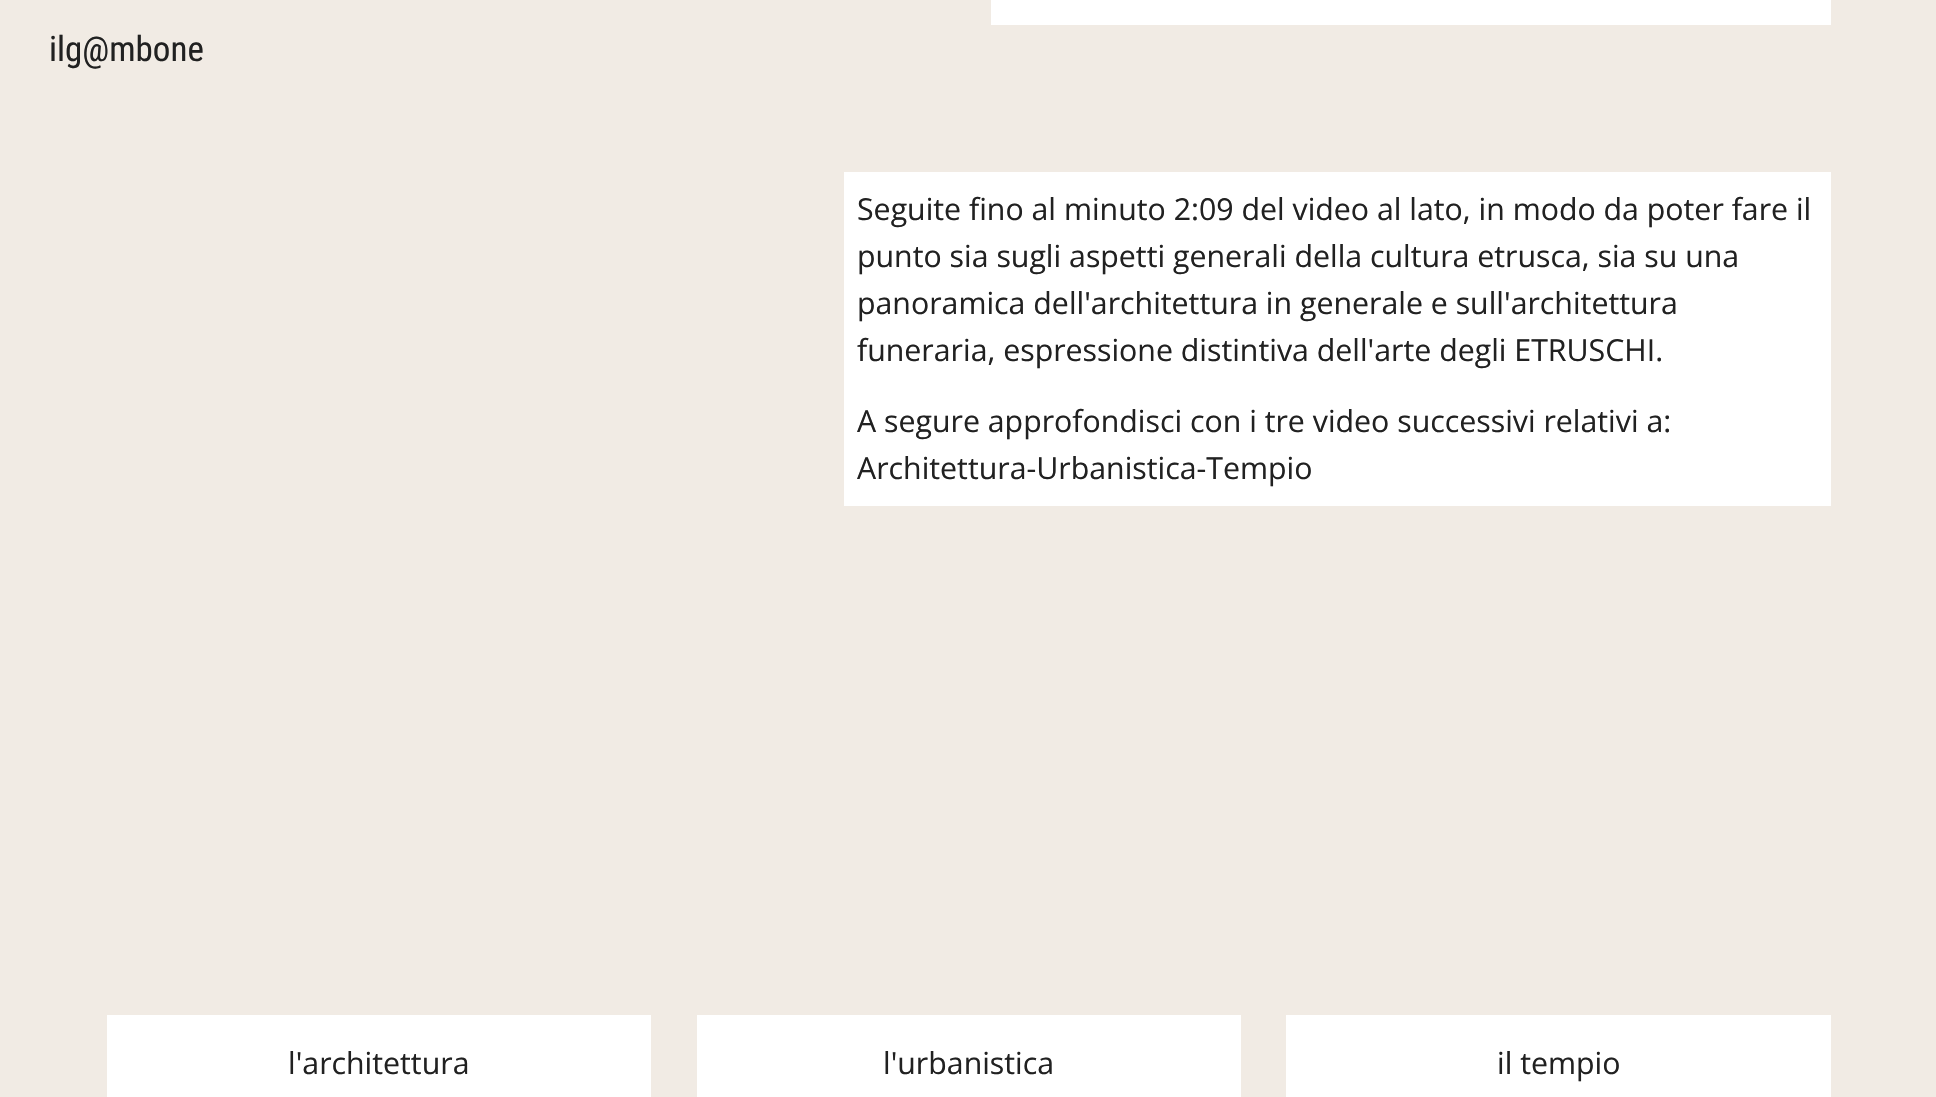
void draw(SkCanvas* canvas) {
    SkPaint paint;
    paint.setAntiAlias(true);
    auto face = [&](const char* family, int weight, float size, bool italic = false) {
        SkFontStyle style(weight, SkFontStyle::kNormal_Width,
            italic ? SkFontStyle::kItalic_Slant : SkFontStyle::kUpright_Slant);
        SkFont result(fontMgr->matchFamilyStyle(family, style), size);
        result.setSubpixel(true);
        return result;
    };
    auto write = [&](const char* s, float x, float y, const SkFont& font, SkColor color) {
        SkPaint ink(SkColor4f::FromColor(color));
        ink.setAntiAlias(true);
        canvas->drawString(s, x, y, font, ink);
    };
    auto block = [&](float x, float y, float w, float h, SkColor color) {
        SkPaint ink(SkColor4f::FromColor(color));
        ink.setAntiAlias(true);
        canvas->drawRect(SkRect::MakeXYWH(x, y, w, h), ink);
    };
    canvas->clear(SkColorSetRGB(241, 235, 228));
    auto kFont1 = face("Roboto Condensed", 400, 35);
    write("ilg@mbone", 49, 61, kFont1, SkColorSetRGB(33, 33, 33));
    block(991, 0, 840, 25, SK_ColorWHITE);
    block(844, 172, 987, 334, SK_ColorWHITE);
    auto kFont2 = face("Open Sans", 400, 30.3f);
    write("Seguite fino al minuto 2:09 del video al lato, in modo da poter fare il", 857, 220, kFont2, SkColorSetRGB(33, 33, 33));
    write("punto sia sugli aspetti generali della cultura etrusca, sia su una", 857, 267, kFont2, SkColorSetRGB(33, 33, 33));
    write("panoramica dell'architettura in generale e sull'architettura", 857, 314, kFont2, SkColorSetRGB(33, 33, 33));
    write("funeraria, espressione distintiva dell'arte degli ETRUSCHI.", 857, 361, kFont2, SkColorSetRGB(33, 33, 33));
    write("A segure approfondisci con i tre video successivi relativi a:", 857, 432, kFont2, SkColorSetRGB(33, 33, 33));
    write("Architettura-Urbanistica-Tempio", 857, 479, kFont2, SkColorSetRGB(33, 33, 33));
    block(107, 1015, 544, 82, SK_ColorWHITE);
    write("l'architettura", 288, 1074, kFont2, SkColorSetRGB(33, 33, 33));
    block(697, 1015, 544, 82, SK_ColorWHITE);
    write("l'urbanistica", 883, 1074, kFont2, SkColorSetRGB(33, 33, 33));
    block(1286, 1015, 545, 82, SK_ColorWHITE);
    write("il tempio", 1497, 1074, kFont2, SkColorSetRGB(33, 33, 33));
}
